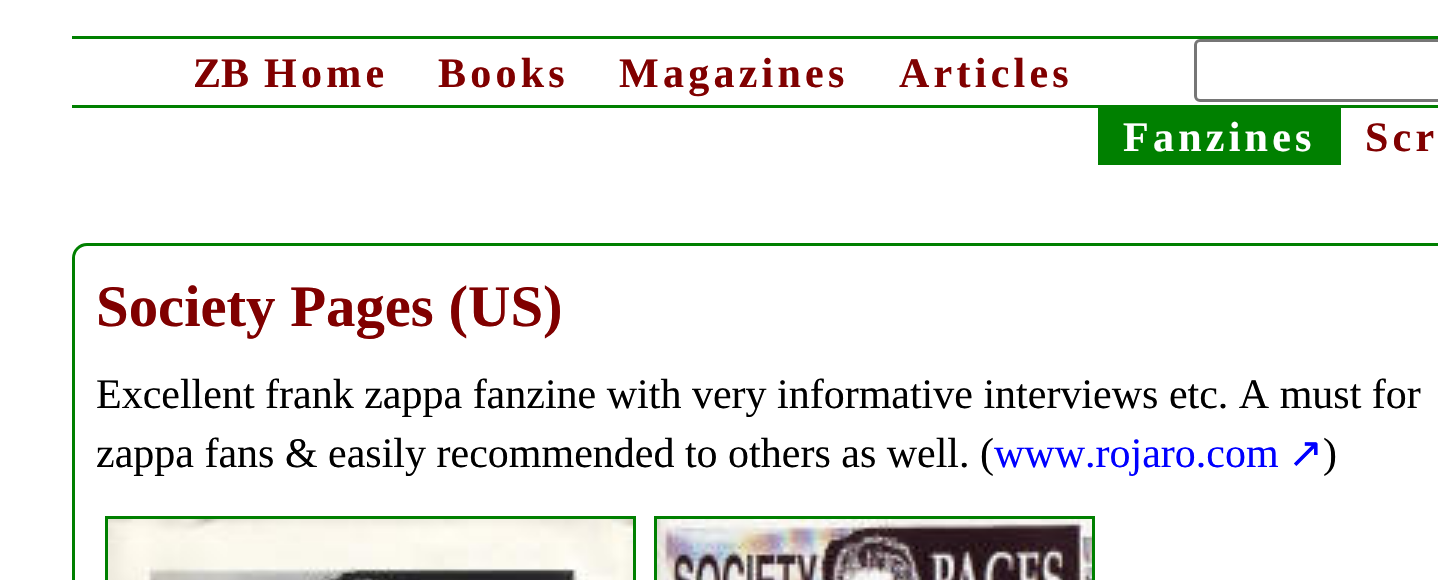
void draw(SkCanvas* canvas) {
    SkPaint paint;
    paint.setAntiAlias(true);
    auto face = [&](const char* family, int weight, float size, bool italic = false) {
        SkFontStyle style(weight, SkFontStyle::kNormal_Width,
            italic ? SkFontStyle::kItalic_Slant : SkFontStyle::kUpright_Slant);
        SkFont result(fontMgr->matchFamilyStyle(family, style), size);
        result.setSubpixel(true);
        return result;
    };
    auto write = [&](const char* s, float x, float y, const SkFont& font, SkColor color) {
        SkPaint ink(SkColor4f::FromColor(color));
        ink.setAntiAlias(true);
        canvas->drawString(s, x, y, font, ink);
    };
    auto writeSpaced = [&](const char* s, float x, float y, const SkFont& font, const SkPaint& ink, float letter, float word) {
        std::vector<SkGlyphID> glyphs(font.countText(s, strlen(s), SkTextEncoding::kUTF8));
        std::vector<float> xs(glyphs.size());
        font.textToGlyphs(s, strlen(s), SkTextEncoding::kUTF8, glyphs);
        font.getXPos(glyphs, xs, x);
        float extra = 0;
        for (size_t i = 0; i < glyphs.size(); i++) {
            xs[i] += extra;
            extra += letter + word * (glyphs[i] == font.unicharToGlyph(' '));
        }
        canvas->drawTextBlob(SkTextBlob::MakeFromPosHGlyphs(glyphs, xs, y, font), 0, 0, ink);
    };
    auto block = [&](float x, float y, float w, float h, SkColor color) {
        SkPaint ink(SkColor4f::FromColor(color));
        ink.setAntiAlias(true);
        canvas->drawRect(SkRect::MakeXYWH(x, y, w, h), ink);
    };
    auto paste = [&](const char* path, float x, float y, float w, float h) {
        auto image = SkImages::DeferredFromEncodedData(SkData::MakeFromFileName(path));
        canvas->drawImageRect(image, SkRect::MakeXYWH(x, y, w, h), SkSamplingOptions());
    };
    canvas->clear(SK_ColorWHITE);
    paint.setStyle(SkPaint::kStroke_Style);
    paint.setStrokeWidth(3);
    paint.setColor(SkColorSetRGB(118, 118, 118));
    canvas->drawRoundRect(SkRect::MakeXYWH(1195.5f, 40.5f, 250, 60), 4.5f, 4.5f, paint);
    block(72, 36, 1366, 3, SkColorSetRGB(0, 128, 0));
    block(72, 105, 1366, 3, SkColorSetRGB(0, 128, 0));
    auto kFont1 = face("Liberation Serif", 700, 42);
    write("ZB", 193, 87, kFont1, SkColorSetRGB(128, 0, 0));
    paint.setStyle(SkPaint::kFill_Style);
    paint.setColor(SkColorSetRGB(128, 0, 0));
    writeSpaced("Home", 264, 87, kFont1, paint, 4.25f, 0);
    writeSpaced("Books", 438, 87, kFont1, paint, 4.25f, 0);
    writeSpaced("Magazines", 619, 87, kFont1, paint, 4.25f, 0);
    writeSpaced("Articles", 899, 87, kFont1, paint, 4.25f, 0);
    block(1098, 108, 243, 57, SkColorSetRGB(0, 128, 0));
    paint.setColor(SK_ColorWHITE);
    writeSpaced("Fanzines", 1123, 151, kFont1, paint, 4.25f, 0);
    paint.setColor(SkColorSetRGB(128, 0, 0));
    writeSpaced("Scr", 1365, 151, kFont1, paint, 4.25f, 0);
    paint.setStyle(SkPaint::kStroke_Style);
    paint.setColor(SkColorSetRGB(0, 128, 0));
    canvas->drawRoundRect(SkRect::MakeXYWH(73.5f, 244.5f, 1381, 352), 13.5f, 13.5f, paint);
    auto kFont2 = face("Liberation Serif", 700, 58.75f);
    write("Society Pages (US)", 96, 326, kFont2, SkColorSetRGB(128, 0, 0));
    auto kFont3 = face("Liberation Serif", 400, 42);
    write("Excellent frank zappa fanzine with very informative interviews etc. A must for", 96, 408, kFont3, SK_ColorBLACK);
    write("zappa fans & easily recommended to others as well. (", 96, 467, kFont3, SK_ColorBLACK);
    write("www.rojaro.com", 994, 467, kFont3, SkColorSetRGB(0, 0, 255));
    auto kFont4 = face("DejaVu Sans", 400, 42);
    write("↗", 1288, 467, kFont4, SkColorSetRGB(0, 0, 255));
    write(")", 1323, 467, kFont3, SK_ColorBLACK);
    canvas->drawRect(SkRect::MakeXYWH(106.5f, 517.5f, 528, 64), paint);
    paste("pic1.png", 108, 519, 525, 61);
    canvas->drawRect(SkRect::MakeXYWH(655.5f, 517.5f, 438, 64), paint);
    paste("pic2.png", 657, 519, 435, 61);
}
